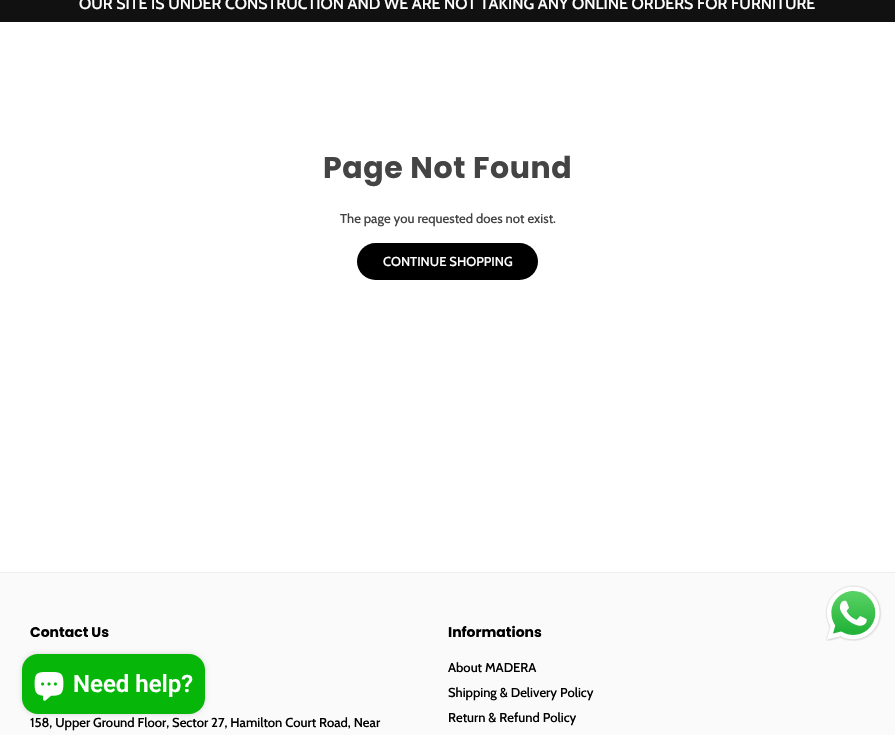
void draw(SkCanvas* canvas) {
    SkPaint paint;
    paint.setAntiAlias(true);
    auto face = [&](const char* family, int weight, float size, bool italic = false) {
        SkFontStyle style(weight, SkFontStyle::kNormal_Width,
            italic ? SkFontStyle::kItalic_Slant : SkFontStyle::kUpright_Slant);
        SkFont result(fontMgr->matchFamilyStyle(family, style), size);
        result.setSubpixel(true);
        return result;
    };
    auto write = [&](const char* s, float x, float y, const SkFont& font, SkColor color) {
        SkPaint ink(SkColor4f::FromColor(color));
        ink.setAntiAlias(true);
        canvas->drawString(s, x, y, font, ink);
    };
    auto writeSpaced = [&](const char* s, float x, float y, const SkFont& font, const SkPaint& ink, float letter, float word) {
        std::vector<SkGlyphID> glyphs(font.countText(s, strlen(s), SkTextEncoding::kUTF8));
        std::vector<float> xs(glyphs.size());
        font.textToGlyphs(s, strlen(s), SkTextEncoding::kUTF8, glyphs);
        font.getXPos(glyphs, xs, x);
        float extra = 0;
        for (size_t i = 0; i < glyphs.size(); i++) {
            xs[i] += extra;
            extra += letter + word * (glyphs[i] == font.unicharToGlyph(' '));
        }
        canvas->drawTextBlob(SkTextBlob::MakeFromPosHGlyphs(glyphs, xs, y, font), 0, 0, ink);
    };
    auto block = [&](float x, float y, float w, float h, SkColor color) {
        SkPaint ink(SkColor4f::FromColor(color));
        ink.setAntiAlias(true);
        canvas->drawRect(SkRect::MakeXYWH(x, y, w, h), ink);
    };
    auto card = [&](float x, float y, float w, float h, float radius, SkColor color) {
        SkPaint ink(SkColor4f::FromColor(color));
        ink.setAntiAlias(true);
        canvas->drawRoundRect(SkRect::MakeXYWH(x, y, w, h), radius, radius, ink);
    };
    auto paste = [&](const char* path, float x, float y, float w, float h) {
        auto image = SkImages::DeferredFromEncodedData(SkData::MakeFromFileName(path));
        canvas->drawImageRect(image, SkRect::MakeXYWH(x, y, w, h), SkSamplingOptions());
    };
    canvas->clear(SK_ColorWHITE);
    block(0, 0, 895, 22, SkColorSetRGB(17, 17, 17));
    auto kFont1 = face("Cabin", 500, 16);
    write("OUR SITE IS UNDER CONSTRUCTION AND WE ARE NOT TAKING ANY ONLINE ORDERS FOR FURNITURE", 79, 9, kFont1, SK_ColorWHITE);
    auto kFont2 = face("Poppins", 700, 30);
    paint.setColor(SkColorSetRGB(68, 68, 68));
    writeSpaced("Page Not Found", 323, 178, kFont2, paint, 0.6f, 0);
    auto kFont3 = face("Cabin", 500, 13);
    write("The page you requested does not exist.", 340, 223, kFont3, SkColorSetRGB(68, 68, 68));
    card(357, 243, 181, 37, 18.5f, SK_ColorBLACK);
    write("CONTINUE SHOPPING", 383, 266, kFont3, SK_ColorWHITE);
    block(0, 573, 895, 162, SkColorSetRGB(250, 250, 250));
    block(0, 572, 895, 1, SkColorSetRGB(238, 238, 238));
    auto kFont4 = face("Poppins", 700, 14);
    write("Contact Us", 30, 637, kFont4, SK_ColorBLACK);
    write("158, Upper Ground Floor, Sector 27, Hamilton Court Road, Near", 30, 727, kFont3, SK_ColorBLACK);
    write("Informations", 448, 637, kFont4, SK_ColorBLACK);
    write("About MADERA", 448, 672, kFont3, SK_ColorBLACK);
    write("Shipping & Delivery Policy", 448, 697, kFont3, SK_ColorBLACK);
    write("Return & Refund Policy", 448, 722, kFont3, SK_ColorBLACK);
    paste("pic1.png", 825, 585, 57, 56);
    paint.setColor(SkColorSetARGB(38, 0, 0, 0));
    paint.setMaskFilter(SkMaskFilter::MakeBlur(kNormal_SkBlurStyle, 2.5f));
    canvas->drawRoundRect(SkRect::MakeXYWH(22, 654, 183, 60), 16, 16, paint);
    paint.setMaskFilter(nullptr);
    card(22, 654, 183, 60, 16, SkColorSetRGB(6, 182, 8));
    paste("pic2.png", 34, 672, 30, 29);
    auto kFont5 = face("Roboto", 600, 24);
    write("Need help?", 73, 692, kFont5, SK_ColorWHITE);
}
